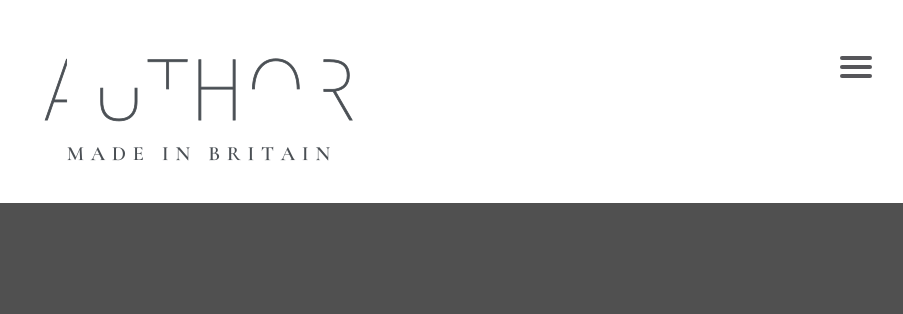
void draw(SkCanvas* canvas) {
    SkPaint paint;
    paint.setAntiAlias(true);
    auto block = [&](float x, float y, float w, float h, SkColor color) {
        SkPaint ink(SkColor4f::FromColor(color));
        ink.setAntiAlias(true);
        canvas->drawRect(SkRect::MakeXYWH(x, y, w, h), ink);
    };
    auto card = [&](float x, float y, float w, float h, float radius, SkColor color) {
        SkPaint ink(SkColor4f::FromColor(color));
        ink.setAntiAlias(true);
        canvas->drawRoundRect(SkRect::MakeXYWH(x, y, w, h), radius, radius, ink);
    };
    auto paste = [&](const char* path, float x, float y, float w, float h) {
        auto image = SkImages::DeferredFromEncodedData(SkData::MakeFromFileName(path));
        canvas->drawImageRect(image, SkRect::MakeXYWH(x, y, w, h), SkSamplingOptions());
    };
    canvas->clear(SkColorSetRGB(80, 80, 80));
    block(0, 0, 903, 203, SK_ColorWHITE);
    paste("pic1.png", 44, 58, 309, 103);
    card(840, 56, 32, 4, 2, SkColorSetRGB(86, 86, 90));
    card(840, 65, 32, 4, 2, SkColorSetRGB(86, 86, 90));
    card(840, 74, 32, 4, 2, SkColorSetRGB(86, 86, 90));
}
